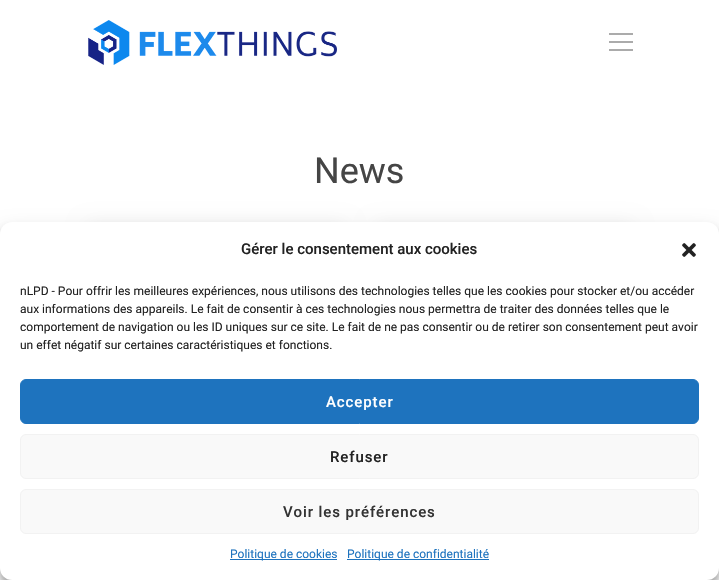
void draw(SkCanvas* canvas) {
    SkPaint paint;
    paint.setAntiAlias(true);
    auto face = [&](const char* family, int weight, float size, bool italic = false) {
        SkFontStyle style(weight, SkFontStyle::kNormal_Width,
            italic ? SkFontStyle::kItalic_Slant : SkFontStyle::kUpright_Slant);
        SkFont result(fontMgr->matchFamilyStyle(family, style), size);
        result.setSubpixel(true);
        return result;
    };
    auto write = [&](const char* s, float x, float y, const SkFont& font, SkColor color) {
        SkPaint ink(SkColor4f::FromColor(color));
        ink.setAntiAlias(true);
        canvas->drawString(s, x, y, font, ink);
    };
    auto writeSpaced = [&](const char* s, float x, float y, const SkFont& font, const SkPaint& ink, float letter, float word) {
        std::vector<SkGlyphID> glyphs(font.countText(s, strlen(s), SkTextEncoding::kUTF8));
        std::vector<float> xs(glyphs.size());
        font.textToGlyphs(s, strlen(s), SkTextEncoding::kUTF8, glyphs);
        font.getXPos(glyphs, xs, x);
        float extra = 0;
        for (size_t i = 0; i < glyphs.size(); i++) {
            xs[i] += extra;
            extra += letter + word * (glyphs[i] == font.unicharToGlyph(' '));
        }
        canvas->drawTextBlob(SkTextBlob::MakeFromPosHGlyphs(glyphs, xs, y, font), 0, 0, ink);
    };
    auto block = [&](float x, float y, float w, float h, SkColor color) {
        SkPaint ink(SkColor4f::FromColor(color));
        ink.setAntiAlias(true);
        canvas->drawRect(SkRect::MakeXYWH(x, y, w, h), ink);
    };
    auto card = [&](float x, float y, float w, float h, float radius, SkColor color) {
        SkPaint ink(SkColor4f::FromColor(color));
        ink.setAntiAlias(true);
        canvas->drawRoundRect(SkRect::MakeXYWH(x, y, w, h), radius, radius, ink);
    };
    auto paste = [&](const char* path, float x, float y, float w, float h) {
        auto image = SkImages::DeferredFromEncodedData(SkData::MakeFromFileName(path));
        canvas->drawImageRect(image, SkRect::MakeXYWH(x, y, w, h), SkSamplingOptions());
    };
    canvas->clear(SK_ColorWHITE);
    paste("pic1.png", 88, 20, 249, 45);
    block(609, 41, 24, 2, SkColorSetRGB(171, 171, 171));
    block(609, 33, 24, 2, SkColorSetRGB(171, 171, 171));
    block(609, 49, 24, 2, SkColorSetRGB(171, 171, 171));
    auto kFont1 = face("Roboto", 400, 36);
    write("News", 314, 183, kFont1, SkColorSetRGB(69, 69, 69));
    paint.setColor(SkColorSetARGB(15, 0, 0, 0));
    paint.setMaskFilter(SkMaskFilter::MakeBlur(kNormal_SkBlurStyle, 10));
    canvas->drawRoundRect(SkRect::MakeXYWH(87, 225, 258, 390), 5, 5, paint);
    paint.setMaskFilter(nullptr);
    paint.setMaskFilter(SkMaskFilter::MakeBlur(kNormal_SkBlurStyle, 10));
    canvas->drawRoundRect(SkRect::MakeXYWH(375, 225, 258, 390), 5, 5, paint);
    paint.setMaskFilter(nullptr);
    paint.setColor(SkColorSetARGB(59, 0, 0, 0));
    paint.setMaskFilter(SkMaskFilter::MakeBlur(kNormal_SkBlurStyle, 3));
    canvas->drawRoundRect(SkRect::MakeXYWH(0, 228, 719, 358), 12, 12, paint);
    paint.setMaskFilter(nullptr);
    paint.setColor(SkColorSetARGB(48, 0, 0, 0));
    paint.setMaskFilter(SkMaskFilter::MakeBlur(kNormal_SkBlurStyle, 10));
    canvas->drawRoundRect(SkRect::MakeXYWH(0, 232, 719, 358), 12, 12, paint);
    paint.setMaskFilter(nullptr);
    card(0, 222, 719, 358, 12, SK_ColorWHITE);
    auto kFont2 = face("Roboto", 500, 15);
    write("Gérer le consentement aux cookies", 241, 254, kFont2, SkColorSetRGB(34, 34, 34));
    paste("pic2.png", 682, 243, 14, 14);
    auto kFont3 = face("Roboto", 400, 12);
    write("nLPD - Pour offrir les meilleures expériences, nous utilisons des technologies telles que les cookies pour stocker et/ou accéder", 20, 295, kFont3, SkColorSetRGB(34, 34, 34));
    write("aux informations des appareils. Le fait de consentir à ces technologies nous permettra de traiter des données telles que le", 20, 313, kFont3, SkColorSetRGB(34, 34, 34));
    write("comportement de navigation ou les ID uniques sur ce site. Le fait de ne pas consentir ou de retirer son consentement peut avoir", 20, 331, kFont3, SkColorSetRGB(34, 34, 34));
    write("un effet négatif sur certaines caractéristiques et fonctions.", 20, 349, kFont3, SkColorSetRGB(34, 34, 34));
    paint.setColor(SkColorSetRGB(30, 115, 190));
    canvas->drawRoundRect(SkRect::MakeXYWH(20.5f, 379.5f, 678, 44), 5.5f, 5.5f, paint);
    paint.setStyle(SkPaint::kStroke_Style);
    paint.setStrokeWidth(1);
    canvas->drawRoundRect(SkRect::MakeXYWH(20.5f, 379.5f, 678, 44), 5.5f, 5.5f, paint);
    paint.setStyle(SkPaint::kFill_Style);
    paint.setColor(SK_ColorWHITE);
    writeSpaced("Accepter", 326, 407, kFont2, paint, 0.9f, 0);
    paint.setColor(SkColorSetRGB(249, 249, 249));
    canvas->drawRoundRect(SkRect::MakeXYWH(20.5f, 434.5f, 678, 44), 5.5f, 5.5f, paint);
    paint.setStyle(SkPaint::kStroke_Style);
    paint.setColor(SkColorSetRGB(242, 242, 242));
    canvas->drawRoundRect(SkRect::MakeXYWH(20.5f, 434.5f, 678, 44), 5.5f, 5.5f, paint);
    paint.setStyle(SkPaint::kFill_Style);
    paint.setColor(SkColorSetRGB(34, 34, 34));
    writeSpaced("Refuser", 330, 462, kFont2, paint, 0.9f, 0);
    paint.setColor(SkColorSetRGB(249, 249, 249));
    canvas->drawRoundRect(SkRect::MakeXYWH(20.5f, 489.5f, 678, 44), 5.5f, 5.5f, paint);
    paint.setStyle(SkPaint::kStroke_Style);
    paint.setColor(SkColorSetRGB(242, 242, 242));
    canvas->drawRoundRect(SkRect::MakeXYWH(20.5f, 489.5f, 678, 44), 5.5f, 5.5f, paint);
    paint.setStyle(SkPaint::kFill_Style);
    paint.setColor(SkColorSetRGB(51, 51, 51));
    writeSpaced("Voir les préférences", 283, 517, kFont2, paint, 0.9f, 0);
    block(230, 559, 107, 1, SkColorSetRGB(30, 115, 190));
    write("Politique de cookies", 230, 558, kFont3, SkColorSetRGB(30, 115, 190));
    block(347, 559, 142, 1, SkColorSetRGB(30, 115, 190));
    write("Politique de confidentialité", 347, 558, kFont3, SkColorSetRGB(30, 115, 190));
}
